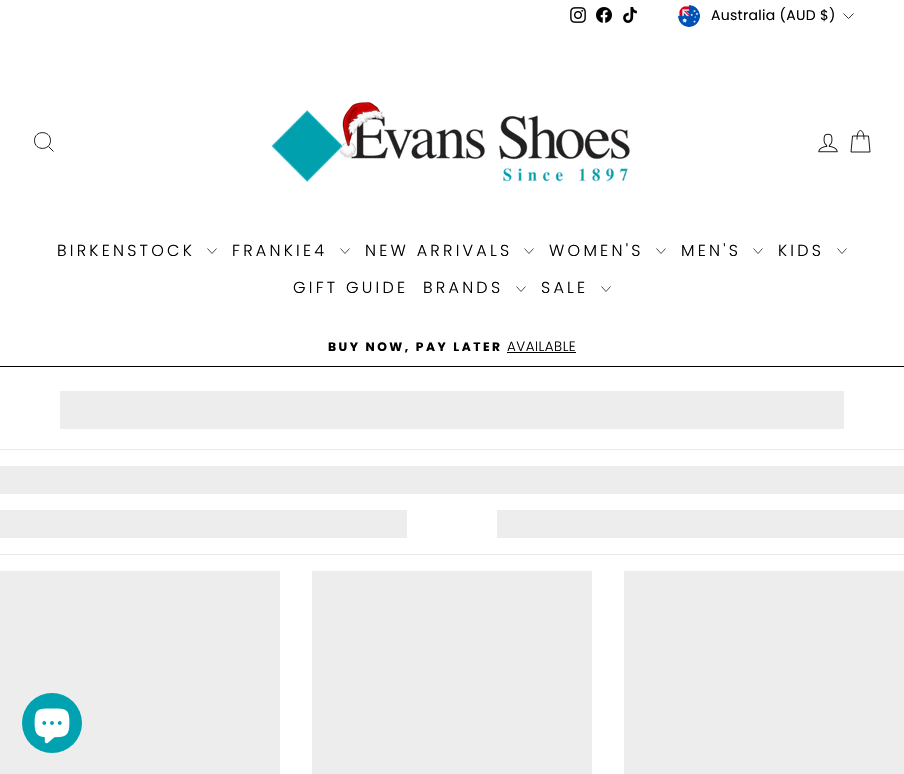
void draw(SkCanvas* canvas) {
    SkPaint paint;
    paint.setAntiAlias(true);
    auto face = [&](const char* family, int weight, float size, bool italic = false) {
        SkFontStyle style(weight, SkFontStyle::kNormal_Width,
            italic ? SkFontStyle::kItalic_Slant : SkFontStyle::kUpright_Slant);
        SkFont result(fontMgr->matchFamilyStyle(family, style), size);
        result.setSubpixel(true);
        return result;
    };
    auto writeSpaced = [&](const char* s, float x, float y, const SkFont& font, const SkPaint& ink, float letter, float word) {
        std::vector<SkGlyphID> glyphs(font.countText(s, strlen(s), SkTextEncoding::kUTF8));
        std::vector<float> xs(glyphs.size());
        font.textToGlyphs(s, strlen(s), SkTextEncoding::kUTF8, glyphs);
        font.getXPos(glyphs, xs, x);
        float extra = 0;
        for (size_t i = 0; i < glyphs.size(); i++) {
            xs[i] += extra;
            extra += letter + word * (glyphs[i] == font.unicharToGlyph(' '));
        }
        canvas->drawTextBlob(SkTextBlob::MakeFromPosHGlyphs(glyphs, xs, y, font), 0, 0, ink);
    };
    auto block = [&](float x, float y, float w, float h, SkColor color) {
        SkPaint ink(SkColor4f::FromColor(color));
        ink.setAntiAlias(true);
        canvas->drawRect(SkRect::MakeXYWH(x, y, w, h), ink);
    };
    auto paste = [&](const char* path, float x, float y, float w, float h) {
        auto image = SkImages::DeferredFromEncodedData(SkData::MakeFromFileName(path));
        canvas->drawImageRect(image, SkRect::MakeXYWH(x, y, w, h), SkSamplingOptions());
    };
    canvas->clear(SK_ColorWHITE);
    paste("pic1.png", 570, 7, 16, 16);
    paste("pic2.png", 596, 7, 16, 16);
    paste("pic3.png", 623, 7, 14, 16);
    paste("pic4.png", 678, 5, 22, 22);
    auto kFont1 = face("Poppins", 400, 14);
    paint.setColor(SK_ColorBLACK);
    writeSpaced("Australia (AUD $)", 711, 20, kFont1, paint, 0.3f, 0);
    paint.setStyle(SkPaint::kStroke_Style);
    paint.setStrokeWidth(0.8f);
    canvas->drawPath(SkPathBuilder().moveTo(843.5f, 13.5f).lineTo(848.5f, 18.5f).lineTo(853.5f, 13.5f).detach(), paint);
    paint.setStrokeWidth(0.9f);
    canvas->drawPath(SkPathBuilder().moveTo(50.5f, 140.5f).cubicTo(50.5f, 151, 34.5f, 151, 34.5f, 140.5f).cubicTo(34.5f, 130, 50.5f, 130, 50.5f, 140.5f).close().moveTo(53.5f, 151.5f).lineTo(48.5f, 146.5f).detach(), paint);
    paste("pic5.png", 271, 102, 359, 80);
    paste("pic6.png", 818, 133, 20, 20);
    canvas->drawPath(SkPathBuilder().moveTo(857, 139.5f).cubicTo(857, 127.5f, 864, 127.5f, 864, 139.5f).moveTo(852.5f, 136).lineTo(868.5f, 136).lineTo(870, 152).lineTo(851, 152).close().detach(), paint);
    auto kFont2 = face("Poppins", 300, 16);
    paint.setStyle(SkPaint::kFill_Style);
    writeSpaced("BIRKENSTOCK", 57, 256, kFont2, paint, 3.25f, 0);
    paint.setStyle(SkPaint::kStroke_Style);
    paint.setStrokeWidth(0.7f);
    canvas->drawPath(SkPathBuilder().moveTo(207.5f, 248.5f).lineTo(212, 253.5f).lineTo(216.5f, 248.5f).detach(), paint);
    paint.setStyle(SkPaint::kFill_Style);
    writeSpaced("FRANKIE4", 232, 256, kFont2, paint, 3.25f, 0);
    paint.setStyle(SkPaint::kStroke_Style);
    canvas->drawPath(SkPathBuilder().moveTo(340.5f, 248.5f).lineTo(345, 253.5f).lineTo(349.5f, 248.5f).detach(), paint);
    paint.setStyle(SkPaint::kFill_Style);
    writeSpaced("NEW ARRIVALS", 365, 256, kFont2, paint, 3.25f, 0);
    paint.setStyle(SkPaint::kStroke_Style);
    canvas->drawPath(SkPathBuilder().moveTo(524.5f, 248.5f).lineTo(529, 253.5f).lineTo(533.5f, 248.5f).detach(), paint);
    paint.setStyle(SkPaint::kFill_Style);
    writeSpaced("WOMEN'S", 549, 256, kFont2, paint, 3.25f, 0);
    paint.setStyle(SkPaint::kStroke_Style);
    canvas->drawPath(SkPathBuilder().moveTo(656.5f, 248.5f).lineTo(661, 253.5f).lineTo(665.5f, 248.5f).detach(), paint);
    paint.setStyle(SkPaint::kFill_Style);
    writeSpaced("MEN'S", 681, 256, kFont2, paint, 3.25f, 0);
    paint.setStyle(SkPaint::kStroke_Style);
    canvas->drawPath(SkPathBuilder().moveTo(753.5f, 248.5f).lineTo(758, 253.5f).lineTo(762.5f, 248.5f).detach(), paint);
    paint.setStyle(SkPaint::kFill_Style);
    writeSpaced("KIDS", 778, 256, kFont2, paint, 3.25f, 0);
    paint.setStyle(SkPaint::kStroke_Style);
    canvas->drawPath(SkPathBuilder().moveTo(837.5f, 248.5f).lineTo(842, 253.5f).lineTo(846.5f, 248.5f).detach(), paint);
    paint.setStyle(SkPaint::kFill_Style);
    writeSpaced("GIFT GUIDE", 293, 293, kFont2, paint, 3.25f, 0);
    writeSpaced("BRANDS", 423, 293, kFont2, paint, 3.25f, 0);
    paint.setStyle(SkPaint::kStroke_Style);
    canvas->drawPath(SkPathBuilder().moveTo(516.5f, 286.5f).lineTo(521, 291.5f).lineTo(525.5f, 286.5f).detach(), paint);
    paint.setStyle(SkPaint::kFill_Style);
    writeSpaced("SALE", 541, 293, kFont2, paint, 3.25f, 0);
    paint.setStyle(SkPaint::kStroke_Style);
    canvas->drawPath(SkPathBuilder().moveTo(601.5f, 286.5f).lineTo(606, 291.5f).lineTo(610.5f, 286.5f).detach(), paint);
    block(0, 366, 904, 1, SK_ColorBLACK);
    auto kFont3 = face("Poppins", 700, 12.25f);
    paint.setStyle(SkPaint::kFill_Style);
    writeSpaced("BUY NOW, PAY LATER", 328, 351, kFont3, paint, 2.5f, 0);
    auto kFont4 = face("Poppins", 300, 13.5f);
    writeSpaced("AVAILABLE", 507, 351, kFont4, paint, 0.5f, 0);
    block(507, 352, 69, 1, SK_ColorBLACK);
    block(60, 391, 784, 38, SkColorSetRGB(237, 237, 237));
    block(0, 449, 904, 1, SkColorSetRGB(235, 235, 235));
    block(0, 554, 904, 1, SkColorSetRGB(235, 235, 235));
    block(0, 466, 904, 28, SkColorSetRGB(237, 237, 237));
    block(0, 510, 407, 28, SkColorSetRGB(237, 237, 237));
    block(497, 510, 407, 28, SkColorSetRGB(237, 237, 237));
    block(0, 571, 280, 203, SkColorSetRGB(237, 237, 237));
    block(312, 571, 280, 203, SkColorSetRGB(237, 237, 237));
    block(624, 571, 280, 203, SkColorSetRGB(237, 237, 237));
    paint.setColor(SkColorSetRGB(0, 161, 176));
    canvas->drawCircle(52, 723, 30, paint);
    paste("pic7.png", 34, 708, 36, 36);
}
